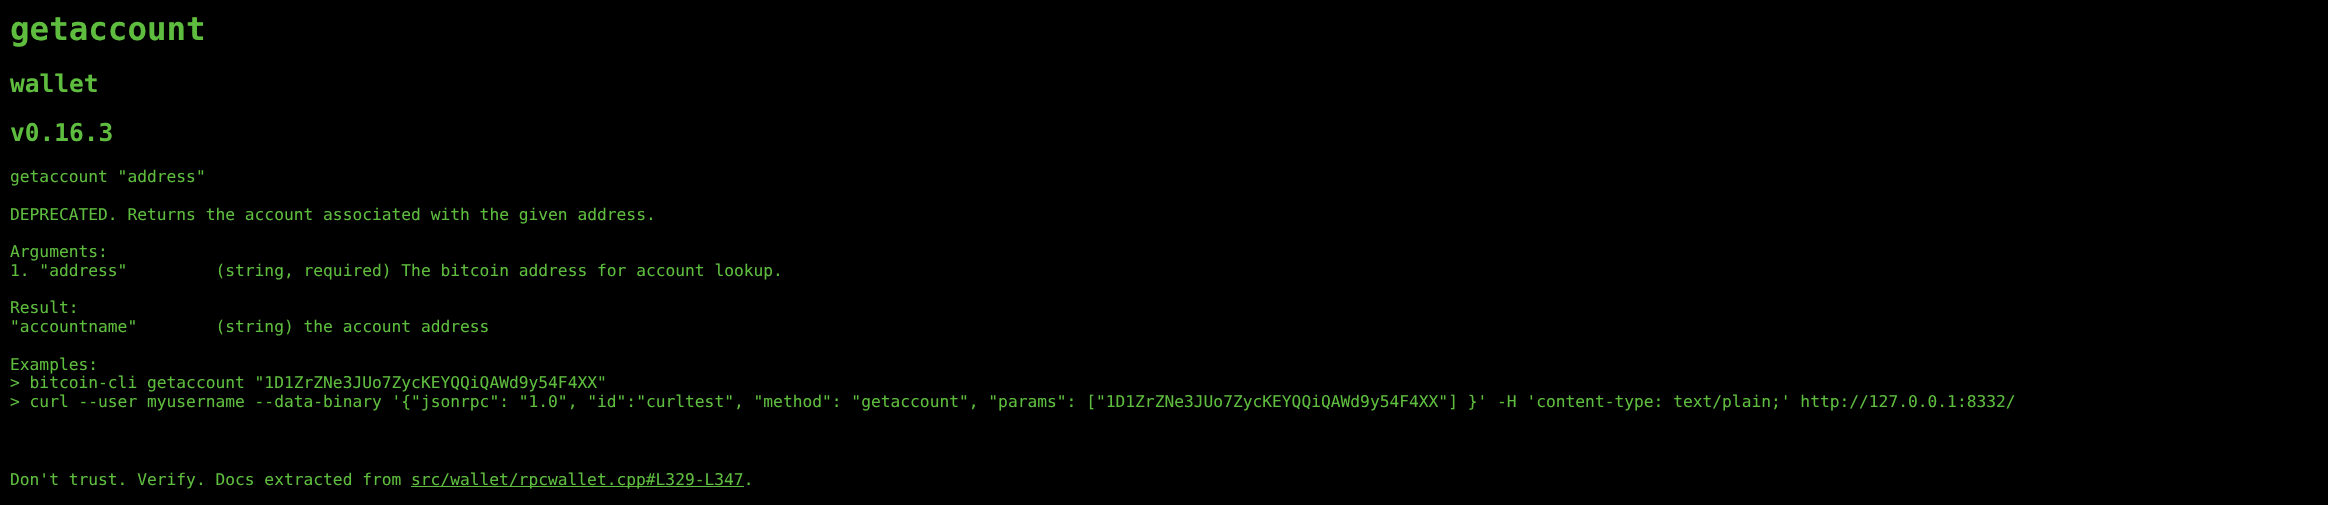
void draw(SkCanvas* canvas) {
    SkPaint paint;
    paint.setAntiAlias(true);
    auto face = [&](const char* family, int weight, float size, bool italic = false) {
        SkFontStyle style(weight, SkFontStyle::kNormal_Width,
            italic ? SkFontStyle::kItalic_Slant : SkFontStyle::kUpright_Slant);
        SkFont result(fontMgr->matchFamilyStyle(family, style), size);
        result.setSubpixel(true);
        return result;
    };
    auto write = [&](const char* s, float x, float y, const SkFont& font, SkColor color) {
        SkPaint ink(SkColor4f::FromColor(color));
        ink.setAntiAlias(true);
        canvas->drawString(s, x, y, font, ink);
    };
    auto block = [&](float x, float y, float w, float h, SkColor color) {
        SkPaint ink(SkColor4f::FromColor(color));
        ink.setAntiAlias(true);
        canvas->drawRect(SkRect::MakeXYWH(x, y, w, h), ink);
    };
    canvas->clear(SK_ColorBLACK);
    auto kFont1 = face("DejaVu Sans Mono", 700, 32.5f);
    write("getaccount", 10, 40, kFont1, SkColorSetRGB(94, 189, 62));
    auto kFont2 = face("DejaVu Sans Mono", 700, 24.5f);
    write("wallet", 10, 92, kFont2, SkColorSetRGB(94, 189, 62));
    write("v0.16.3", 10, 141, kFont2, SkColorSetRGB(94, 189, 62));
    auto kFont3 = face("DejaVu Sans Mono", 400, 16.25f);
    write("getaccount \"address\"", 10, 182, kFont3, SkColorSetRGB(94, 189, 62));
    write("DEPRECATED. Returns the account associated with the given address.", 10, 220, kFont3, SkColorSetRGB(94, 189, 62));
    write("Arguments:", 10, 257, kFont3, SkColorSetRGB(94, 189, 62));
    write("1. \"address\"         (string, required) The bitcoin address for account lookup.", 10, 276, kFont3, SkColorSetRGB(94, 189, 62));
    write("Result:", 10, 313, kFont3, SkColorSetRGB(94, 189, 62));
    write("\"accountname\"        (string) the account address", 10, 332, kFont3, SkColorSetRGB(94, 189, 62));
    write("Examples:", 10, 370, kFont3, SkColorSetRGB(94, 189, 62));
    write("> bitcoin-cli getaccount \"1D1ZrZNe3JUo7ZycKEYQQiQAWd9y54F4XX\"", 10, 388, kFont3, SkColorSetRGB(94, 189, 62));
    write("> curl --user myusername --data-binary '{\"jsonrpc\": \"1.0\", \"id\":\"curltest\", \"method\": \"getaccount\", \"params\": [\"1D1ZrZNe3JUo7ZycKEYQQiQAWd9y54F4XX\"] }' -H 'content-type: text/plain;' http://127.0.0.1:8332/", 10, 407, kFont3, SkColorSetRGB(94, 189, 62));
    write("Don't trust. Verify. Docs extracted from", 10, 485, kFont3, SkColorSetRGB(94, 189, 62));
    block(411, 486, 333, 1, SkColorSetRGB(94, 189, 62));
    write("src/wallet/rpcwallet.cpp#L329-L347.", 411, 485, kFont3, SkColorSetRGB(94, 189, 62));
}
